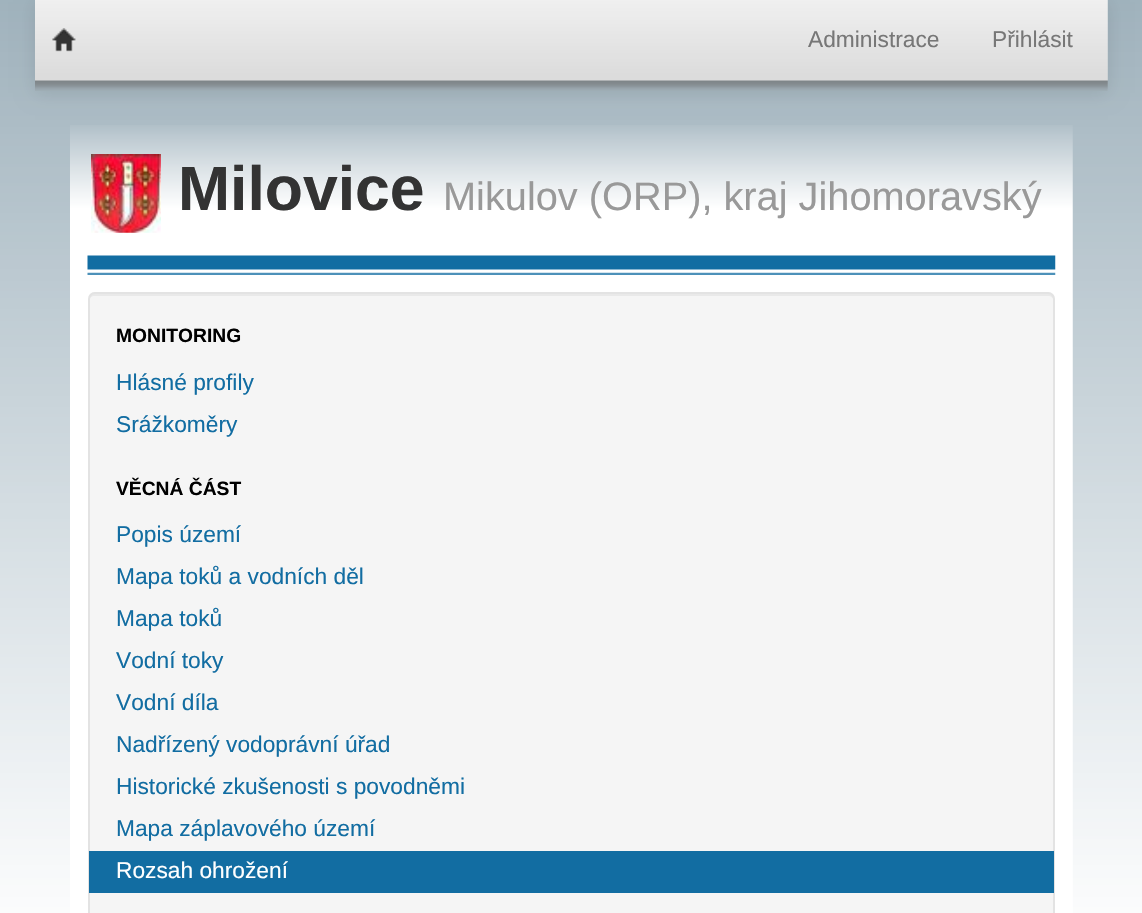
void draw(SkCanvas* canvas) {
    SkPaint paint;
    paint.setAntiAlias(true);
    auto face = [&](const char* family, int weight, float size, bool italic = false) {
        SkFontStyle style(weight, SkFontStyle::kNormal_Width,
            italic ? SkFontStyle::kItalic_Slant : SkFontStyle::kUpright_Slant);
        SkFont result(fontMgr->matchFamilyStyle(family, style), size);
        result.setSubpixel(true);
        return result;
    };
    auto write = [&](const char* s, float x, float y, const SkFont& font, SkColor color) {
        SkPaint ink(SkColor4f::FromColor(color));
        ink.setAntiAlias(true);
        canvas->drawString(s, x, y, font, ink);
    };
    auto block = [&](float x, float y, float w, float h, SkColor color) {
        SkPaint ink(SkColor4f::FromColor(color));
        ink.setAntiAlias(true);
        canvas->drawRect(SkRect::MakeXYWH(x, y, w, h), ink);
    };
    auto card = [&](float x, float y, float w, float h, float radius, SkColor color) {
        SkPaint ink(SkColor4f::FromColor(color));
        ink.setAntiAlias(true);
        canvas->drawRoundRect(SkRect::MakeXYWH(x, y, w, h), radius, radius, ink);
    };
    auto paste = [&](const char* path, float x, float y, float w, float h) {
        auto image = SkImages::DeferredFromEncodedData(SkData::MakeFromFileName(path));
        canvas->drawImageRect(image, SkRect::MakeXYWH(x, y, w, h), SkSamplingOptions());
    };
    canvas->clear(SK_ColorWHITE);
    paste("pic1.png", 0, 0, 1142, 913);
    canvas->save();
    canvas->clipPath(SkPathBuilder(SkPathFillType::kEvenOdd).moveTo(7, 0).lineTo(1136, 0).lineTo(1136, 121).lineTo(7, 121).close().moveTo(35, 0).lineTo(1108, 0).lineTo(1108, 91).lineTo(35, 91).close().detach(), true);
    paint.setColor(SkColorSetARGB(26, 0, 0, 0));
    paint.setMaskFilter(SkMaskFilter::MakeBlur(kNormal_SkBlurStyle, 9));
    canvas->drawRect(SkRect::MakeXYWH(35, 2, 1073, 91), paint);
    paint.setMaskFilter(nullptr);
    canvas->restore();
    paste("pic2.png", 35, 0, 1073, 91);
    paste("pic3.png", 52, 28, 24, 24);
    auto kFont1 = face("Liberation Sans", 400, 22.75f);
    write("Administrace", 808, 47, kFont1, SkColorSetRGB(119, 119, 119));
    write("Přihlásit", 992, 47, kFont1, SkColorSetRGB(119, 119, 119));
    paste("pic4.png", 70, 125, 1003, 788);
    paste("pic5.png", 87, 255, 969, 20);
    paste("pic6.png", 91, 154, 70, 79);
    auto kFont2 = face("Liberation Sans", 700, 62.5f);
    write("Milovice", 178, 210, kFont2, SkColorSetRGB(51, 51, 51));
    auto kFont3 = face("Liberation Sans", 400, 39.75f);
    write("Mikulov (ORP), kraj Jihomoravský", 443, 210, kFont3, SkColorSetRGB(153, 153, 153));
    card(88, 292, 967, 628, 7, SkColorSetRGB(245, 245, 245));
    paint.setColor(SkColorSetRGB(233, 233, 233));
    canvas->drawPath(SkPathBuilder().moveTo(94, 296).lineTo(1048, 296).cubicTo(1051, 296, 1054, 298, 1054, 301).lineTo(1054, 299).cubicTo(1054, 296, 1052, 294, 1049, 294).lineTo(94, 294).cubicTo(91, 294, 89, 296, 89, 299).lineTo(89, 301).cubicTo(89, 298, 92, 296, 94, 296).close().detach(), paint);
    paint.setStyle(SkPaint::kStroke_Style);
    paint.setStrokeWidth(2);
    paint.setColor(SkColorSetRGB(227, 227, 227));
    canvas->drawRoundRect(SkRect::MakeXYWH(89, 293, 965, 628), 6, 6, paint);
    auto kFont4 = face("Liberation Sans", 700, 19.25f);
    write("MONITORING", 116, 342, kFont4, SK_ColorBLACK);
    write("Hlásné profily", 116, 390, kFont1, SkColorSetRGB(18, 109, 162));
    write("Srážkoměry", 116, 432, kFont1, SkColorSetRGB(18, 109, 162));
    write("VĚCNÁ ČÁST", 116, 495, kFont4, SK_ColorBLACK);
    write("Popis území", 116, 542, kFont1, SkColorSetRGB(18, 109, 162));
    write("Mapa toků a vodních děl", 116, 584, kFont1, SkColorSetRGB(18, 109, 162));
    write("Mapa toků", 116, 626, kFont1, SkColorSetRGB(18, 109, 162));
    write("Vodní toky", 116, 668, kFont1, SkColorSetRGB(18, 109, 162));
    write("Vodní díla", 116, 710, kFont1, SkColorSetRGB(18, 109, 162));
    write("Nadřízený vodoprávní úřad", 116, 752, kFont1, SkColorSetRGB(18, 109, 162));
    write("Historické zkušenosti s povodněmi", 116, 794, kFont1, SkColorSetRGB(18, 109, 162));
    write("Mapa záplavového území", 116, 836, kFont1, SkColorSetRGB(18, 109, 162));
    block(89, 851, 965, 42, SkColorSetRGB(18, 109, 162));
    write("Rozsah ohrožení", 116, 878, kFont1, SK_ColorWHITE);
}
